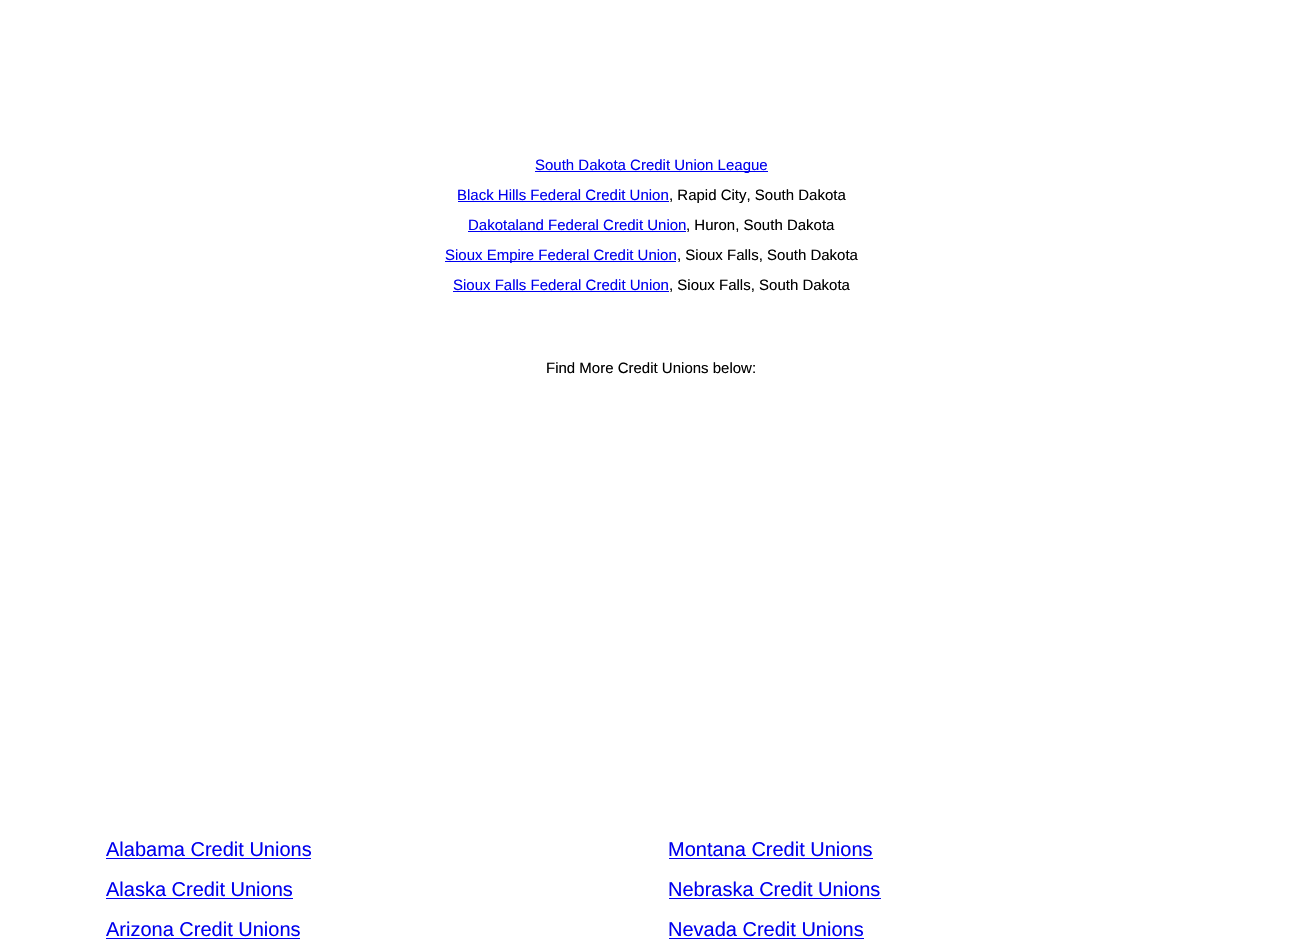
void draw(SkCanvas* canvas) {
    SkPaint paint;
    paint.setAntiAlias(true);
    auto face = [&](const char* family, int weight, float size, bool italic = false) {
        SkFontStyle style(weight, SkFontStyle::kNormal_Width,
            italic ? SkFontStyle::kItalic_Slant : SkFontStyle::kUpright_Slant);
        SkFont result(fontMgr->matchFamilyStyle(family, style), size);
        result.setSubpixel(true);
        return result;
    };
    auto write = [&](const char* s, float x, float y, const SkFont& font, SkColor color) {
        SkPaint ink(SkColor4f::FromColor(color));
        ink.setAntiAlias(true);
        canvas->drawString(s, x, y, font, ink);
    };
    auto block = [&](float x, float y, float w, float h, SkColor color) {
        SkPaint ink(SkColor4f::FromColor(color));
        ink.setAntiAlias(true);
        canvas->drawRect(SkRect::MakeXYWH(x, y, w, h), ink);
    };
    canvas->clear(SK_ColorWHITE);
    block(535, 171, 233, 1, SkColorSetRGB(0, 0, 238));
    auto kFont1 = face("Liberation Sans", 400, 15);
    write("South Dakota Credit Union League", 535, 170, kFont1, SkColorSetRGB(0, 0, 238));
    write("Black Hills Federal Credit Union", 457, 200, kFont1, SkColorSetRGB(0, 0, 238));
    block(458, 201, 211, 1, SkColorSetRGB(0, 0, 238));
    write(", Rapid City, South Dakota", 669, 200, kFont1, SK_ColorBLACK);
    write("Dakotaland Federal Credit Union", 468, 230, kFont1, SkColorSetRGB(0, 0, 238));
    block(468, 231, 218, 1, SkColorSetRGB(0, 0, 238));
    write(", Huron, South Dakota", 686, 230, kFont1, SK_ColorBLACK);
    block(445, 261, 231, 1, SkColorSetRGB(0, 0, 238));
    write("Sioux Empire Federal Credit Union", 445, 260, kFont1, SkColorSetRGB(0, 0, 238));
    write(", Sioux Falls, South Dakota", 677, 260, kFont1, SK_ColorBLACK);
    write("Sioux Falls Federal Credit Union", 453, 290, kFont1, SkColorSetRGB(0, 0, 238));
    block(453, 291, 216, 1, SkColorSetRGB(0, 0, 238));
    write(", Sioux Falls, South Dakota", 669, 290, kFont1, SK_ColorBLACK);
    write("Find More Credit Unions below:", 546, 373, kFont1, SK_ColorBLACK);
    auto kFont2 = face("Liberation Sans", 400, 20);
    write("Alabama Credit Unions", 106, 856, kFont2, SkColorSetRGB(0, 0, 238));
    block(106, 858, 205, 1, SkColorSetRGB(0, 0, 238));
    write("Alaska Credit Unions", 106, 896, kFont2, SkColorSetRGB(0, 0, 238));
    block(106, 898, 187, 1, SkColorSetRGB(0, 0, 238));
    write("Arizona Credit Unions", 106, 936, kFont2, SkColorSetRGB(0, 0, 238));
    block(106, 938, 194, 1, SkColorSetRGB(0, 0, 238));
    write("Montana Credit Unions", 668, 856, kFont2, SkColorSetRGB(0, 0, 238));
    block(669, 858, 204, 1, SkColorSetRGB(0, 0, 238));
    write("Nebraska Credit Unions", 668, 896, kFont2, SkColorSetRGB(0, 0, 238));
    block(669, 898, 212, 1, SkColorSetRGB(0, 0, 238));
    write("Nevada Credit Unions", 668, 936, kFont2, SkColorSetRGB(0, 0, 238));
    block(669, 938, 195, 1, SkColorSetRGB(0, 0, 238));
}
